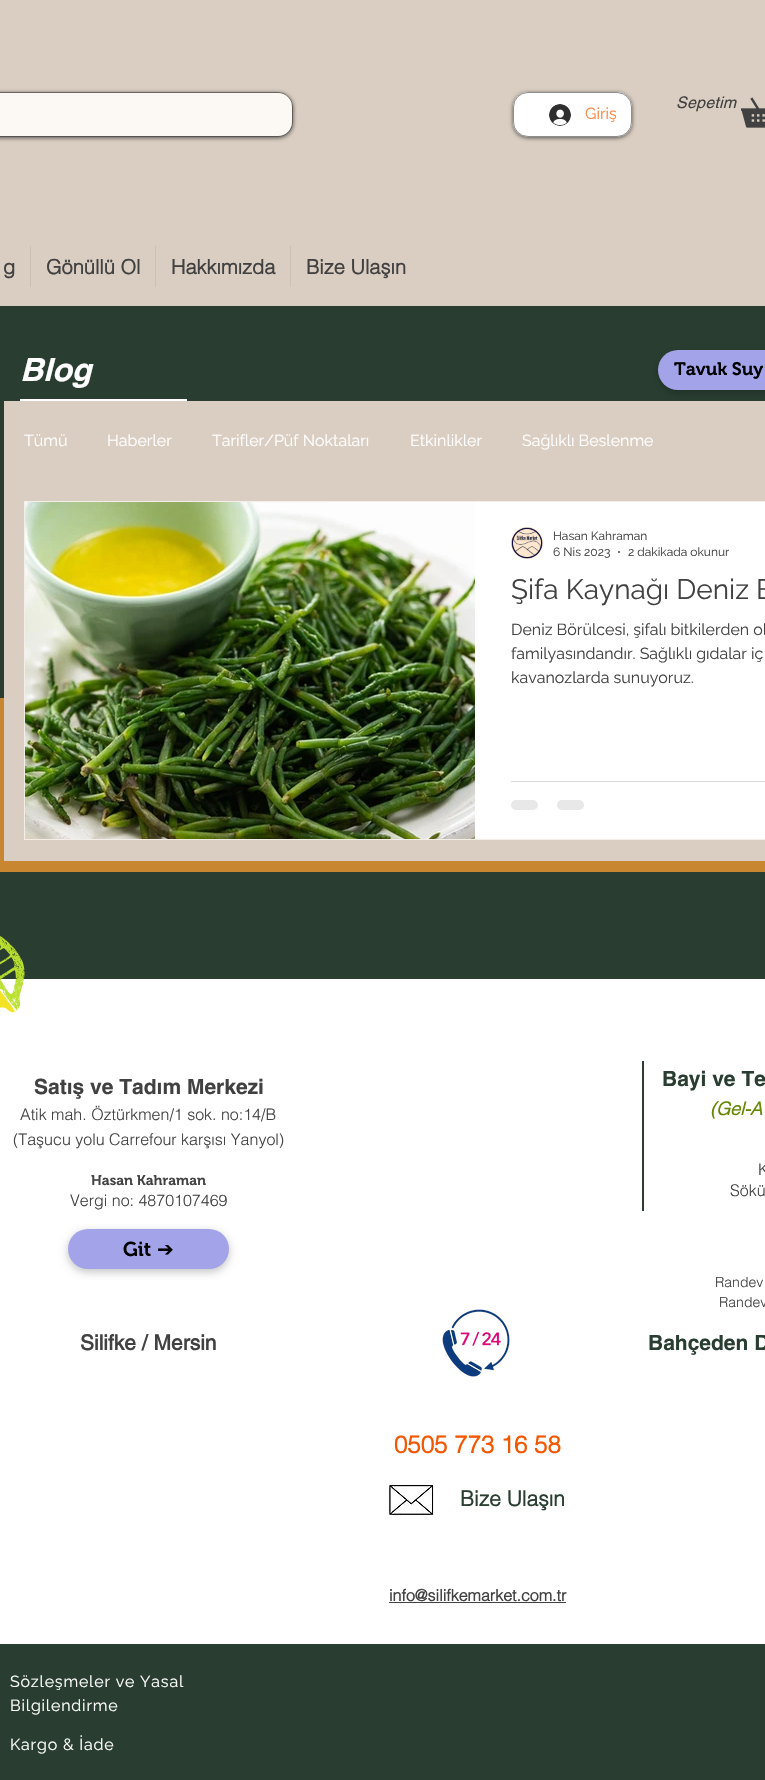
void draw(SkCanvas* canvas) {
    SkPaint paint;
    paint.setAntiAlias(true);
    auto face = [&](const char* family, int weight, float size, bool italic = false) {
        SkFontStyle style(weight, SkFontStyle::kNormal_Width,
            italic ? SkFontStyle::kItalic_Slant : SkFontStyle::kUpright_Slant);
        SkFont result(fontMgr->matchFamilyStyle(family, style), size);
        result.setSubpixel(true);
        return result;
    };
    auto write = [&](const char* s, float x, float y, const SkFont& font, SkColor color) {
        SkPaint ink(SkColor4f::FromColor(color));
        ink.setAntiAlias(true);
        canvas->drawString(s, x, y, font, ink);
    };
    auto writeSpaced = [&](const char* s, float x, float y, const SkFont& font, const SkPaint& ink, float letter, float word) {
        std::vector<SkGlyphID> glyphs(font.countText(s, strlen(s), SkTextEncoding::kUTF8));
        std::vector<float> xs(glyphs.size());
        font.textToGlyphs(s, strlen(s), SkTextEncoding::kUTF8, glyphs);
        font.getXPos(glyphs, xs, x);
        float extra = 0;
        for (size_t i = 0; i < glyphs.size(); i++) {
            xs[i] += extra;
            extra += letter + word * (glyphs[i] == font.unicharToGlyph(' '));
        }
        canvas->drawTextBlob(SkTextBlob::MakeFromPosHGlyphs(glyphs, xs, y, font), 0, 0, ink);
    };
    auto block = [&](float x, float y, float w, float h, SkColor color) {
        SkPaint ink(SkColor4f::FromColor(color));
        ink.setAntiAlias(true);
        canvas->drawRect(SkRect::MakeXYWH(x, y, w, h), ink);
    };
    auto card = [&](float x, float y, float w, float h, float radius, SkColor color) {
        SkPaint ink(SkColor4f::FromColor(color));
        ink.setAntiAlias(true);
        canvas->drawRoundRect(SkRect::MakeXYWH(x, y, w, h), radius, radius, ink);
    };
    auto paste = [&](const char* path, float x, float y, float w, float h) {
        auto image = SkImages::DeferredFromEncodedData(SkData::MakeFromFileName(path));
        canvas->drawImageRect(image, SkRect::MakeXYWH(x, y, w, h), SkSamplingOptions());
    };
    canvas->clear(SkColorSetRGB(200, 134, 48));
    block(0, 0, 765, 306, SkColorSetRGB(218, 206, 194));
    paint.setColor(SkColorSetARGB(153, 0, 0, 0));
    paint.setMaskFilter(SkMaskFilter::MakeBlur(kNormal_SkBlurStyle, 2));
    canvas->drawRoundRect(SkRect::MakeXYWH(-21, 93, 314, 45), 15, 15, paint);
    paint.setMaskFilter(nullptr);
    paint.setStyle(SkPaint::kStroke_Style);
    paint.setStrokeWidth(1);
    paint.setColor(SkColorSetARGB(153, 65, 65, 65));
    canvas->drawRoundRect(SkRect::MakeXYWH(-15.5f, 92.5f, 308, 44), 14.5f, 14.5f, paint);
    card(-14, 93, 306, 43, 14, SkColorSetRGB(252, 249, 244));
    auto kFont1 = face("helvetica", 400, 16, true);
    paint.setStyle(SkPaint::kFill_Style);
    paint.setColor(SkColorSetRGB(65, 65, 65));
    writeSpaced("Sepetim", 676, 108, kFont1, paint, 0.25f, 0);
    paste("pic1.png", 741, 97, 24, 31);
    paint.setColor(SkColorSetARGB(153, 0, 0, 0));
    paint.setMaskFilter(SkMaskFilter::MakeBlur(kNormal_SkBlurStyle, 2));
    canvas->drawRoundRect(SkRect::MakeXYWH(513, 93, 119, 45), 15, 15, paint);
    paint.setMaskFilter(nullptr);
    card(513, 92, 119, 45, 15, SK_ColorWHITE);
    paint.setStyle(SkPaint::kStroke_Style);
    paint.setColor(SkColorSetARGB(153, 65, 65, 65));
    canvas->drawRoundRect(SkRect::MakeXYWH(513.5f, 92.5f, 118, 44), 14.5f, 14.5f, paint);
    paste("pic2.png", 549, 104, 22, 22);
    auto kFont2 = face("Raleway", 400, 16);
    write("Giriş", 585, 119, kFont2, SkColorSetRGB(254, 131, 64));
    auto kFont3 = face("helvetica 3", 700, 20);
    write("g", 3, 274, kFont3, SkColorSetRGB(65, 65, 65));
    block(30, 246, 1, 41, SkColorSetRGB(203, 192, 181));
    write("Gönüllü Ol", 46, 274, kFont3, SkColorSetRGB(65, 65, 65));
    block(155, 246, 1, 41, SkColorSetRGB(203, 192, 181));
    write("Hakkımızda", 171, 274, kFont3, SkColorSetRGB(65, 65, 65));
    block(290, 246, 1, 41, SkColorSetRGB(203, 192, 181));
    write("Bize Ulaşın", 306, 274, kFont3, SkColorSetRGB(65, 65, 65));
    block(0, 306, 765, 392, SkColorSetRGB(41, 62, 49));
    auto kFont4 = face("helvetica", 700, 32, true);
    write("Blog", 20, 381, kFont4, SK_ColorWHITE);
    paint.setStyle(SkPaint::kFill_Style);
    paint.setColor(SkColorSetARGB(59, 0, 0, 0));
    paint.setMaskFilter(SkMaskFilter::MakeBlur(kNormal_SkBlurStyle, 4.5f));
    canvas->drawRoundRect(SkRect::MakeXYWH(658, 353, 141, 40), 20, 20, paint);
    paint.setMaskFilter(nullptr);
    card(658, 350, 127, 40, 20, SkColorSetRGB(162, 163, 233));
    auto kFont5 = face("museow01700", 600, 18);
    write("Tavuk Suy", 674, 375, kFont5, SK_ColorBLACK);
    block(20, 399, 167, 2, SK_ColorWHITE);
    block(4, 401, 761, 460, SkColorSetRGB(218, 206, 194));
    write("Tümü", 24, 446, kFont2, SK_ColorWHITE);
    write("Haberler", 107, 446, kFont2, SK_ColorWHITE);
    write("Tarifler/Püf Noktaları", 212, 446, kFont2, SK_ColorWHITE);
    write("Etkinlikler", 410, 446, kFont2, SK_ColorWHITE);
    write("Sağlıklı Beslenme", 522, 446, kFont2, SK_ColorWHITE);
    paint.setStyle(SkPaint::kStroke_Style);
    paint.setColor(SkColorSetRGB(244, 238, 232));
    canvas->drawRect(SkRect::MakeXYWH(24.5f, 501.5f, 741, 338), paint);
    paste("pic3.png", 25, 502, 450, 337);
    block(475, 502, 290, 337, SK_ColorWHITE);
    paste("pic4.png", 511, 527, 32, 32);
    auto kFont6 = face("Raleway", 400, 12);
    write("Hasan Kahraman", 553, 540, kFont6, SkColorSetRGB(65, 65, 65));
    write("6 Nis 2023", 553, 556, kFont6, SkColorSetRGB(65, 65, 65));
    paint.setStyle(SkPaint::kFill_Style);
    paint.setColor(SkColorSetRGB(65, 65, 65));
    canvas->drawCircle(619, 552, 1, paint);
    write("2 dakikada okunur", 628, 556, kFont6, SkColorSetRGB(65, 65, 65));
    auto kFont7 = face("Raleway", 400, 28);
    write("Şifa Kaynağı Deniz B", 511, 599, kFont7, SkColorSetRGB(65, 65, 65));
    write("Deniz Börülcesi, şifalı bitkilerden ol", 511, 635, kFont2, SkColorSetRGB(65, 65, 65));
    write("familyasındandır. Sağlıklı gıdalar iç", 511, 659, kFont2, SkColorSetRGB(65, 65, 65));
    write("kavanozlarda sunuyoruz.", 511, 683, kFont2, SkColorSetRGB(65, 65, 65));
    block(511, 781, 254, 1, SkColorSetRGB(217, 217, 217));
    card(511, 800, 27, 10, 5, SkColorSetRGB(232, 232, 232));
    card(557, 800, 27, 10, 5, SkColorSetRGB(232, 232, 232));
    block(0, 872, 765, 908, SkColorSetRGB(41, 62, 49));
    block(0, 979, 765, 665, SK_ColorWHITE);
    paste("pic5.png", 0, 935, 25, 78);
    auto kFont8 = face("helvetica", 700, 21);
    write("Satış ve Tadım Merkezi", 34, 1094, kFont8, SkColorSetRGB(65, 65, 65));
    auto kFont9 = face("helvetica", 300, 16);
    write("Atik mah. Öztürkmen/1 sok. no:14/B", 20, 1120, kFont9, SkColorSetRGB(65, 65, 65));
    write("(Taşucu yolu Carrefour karşısı Yanyol)", 13, 1145, kFont9, SkColorSetRGB(65, 65, 65));
    auto kFont10 = face("museow01700", 600, 14);
    write("Hasan Kahraman", 91, 1185, kFont10, SkColorSetRGB(65, 65, 65));
    write("Vergi no: 4870107469", 70, 1206, kFont9, SkColorSetRGB(65, 65, 65));
    paint.setColor(SkColorSetARGB(59, 0, 0, 0));
    paint.setMaskFilter(SkMaskFilter::MakeBlur(kNormal_SkBlurStyle, 4.5f));
    canvas->drawRoundRect(SkRect::MakeXYWH(68, 1232, 161, 40), 20, 20, paint);
    paint.setMaskFilter(nullptr);
    card(68, 1229, 161, 40, 20, SkColorSetRGB(162, 163, 233));
    auto kFont11 = face("museow01700", 600, 20);
    write("Git", 123, 1256, kFont11, SK_ColorBLACK);
    auto kFont12 = face("DejaVu Sans", 400, 20);
    write("➔", 157, 1256, kFont12, SK_ColorBLACK);
    block(642, 1061, 2, 150, SkColorSetRGB(41, 62, 49));
    write("Bayi ve Te", 662, 1086, kFont8, SkColorSetRGB(41, 62, 49));
    auto kFont13 = face("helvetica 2", 700, 18, true);
    write("(Gel-A", 710, 1115, kFont13, SkColorSetRGB(101, 136, 1));
    write("K", 758, 1175, kFont9, SkColorSetRGB(65, 65, 65));
    write("Sökü", 730, 1196, kFont9, SkColorSetRGB(65, 65, 65));
    auto kFont14 = face("helvetica", 300, 14);
    write("Randev", 715, 1287, kFont14, SkColorSetRGB(65, 65, 65));
    write("Randev", 719, 1307, kFont14, SkColorSetRGB(65, 65, 65));
    auto kFont15 = face("helvetica 2", 700, 21);
    write("Silifke / Mersin", 80, 1350, kFont15, SkColorSetRGB(65, 65, 65));
    paste("pic6.png", 442, 1309, 68, 68);
    write("Bahçeden D", 648, 1350, kFont8, SkColorSetRGB(41, 62, 49));
    auto kFont16 = face("helvetica 3", 700, 24);
    write("0505 773 16 58", 394, 1453, kFont16, SkColorSetRGB(244, 86, 1));
    paste("pic7.png", 386, 1482, 48, 35);
    auto kFont17 = face("helvetica 3", 700, 21);
    write("Bize Ulaşın", 460, 1506, kFont17, SkColorSetRGB(41, 62, 49));
    auto kFont18 = face("helvetica 3", 700, 16);
    write("info@silifkemarket.com.tr", 389, 1601, kFont18, SkColorSetRGB(65, 65, 65));
    block(389, 1602, 177, 1, SkColorSetRGB(65, 65, 65));
    paint.setColor(SK_ColorWHITE);
    writeSpaced("Sözleşmeler ve Yasal", 10, 1687, kFont2, paint, 0.8f, 0);
    writeSpaced("Bilgilendirme", 10, 1711, kFont2, paint, 0.8f, 0);
    writeSpaced("Kargo & İade", 10, 1750, kFont2, paint, 0.8f, 0);
}
